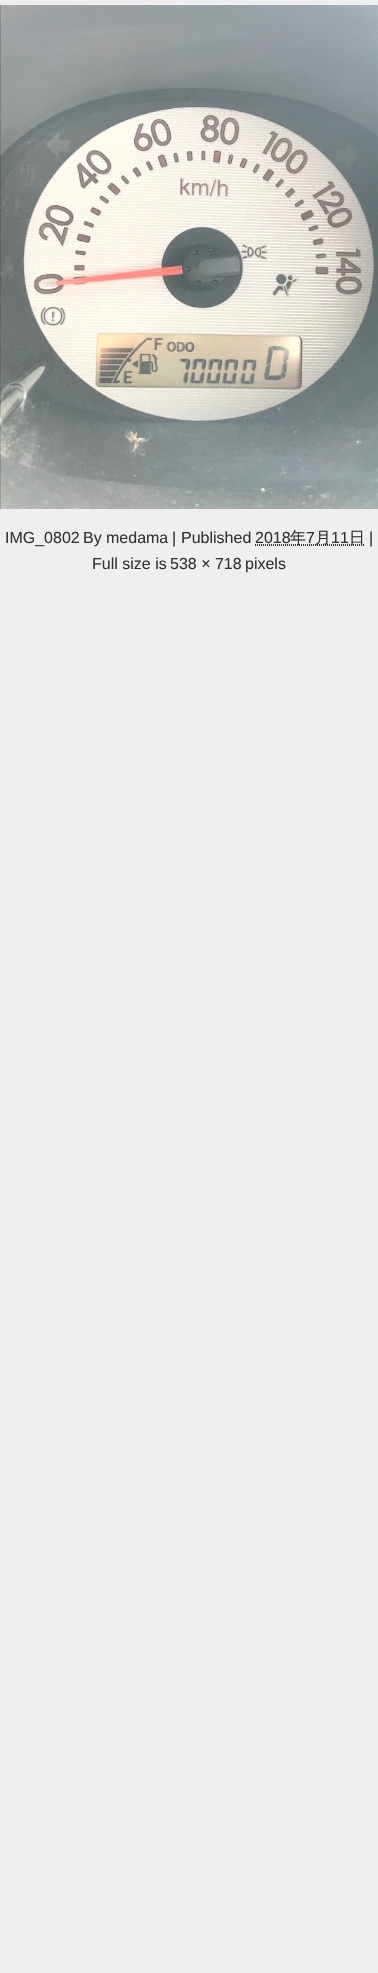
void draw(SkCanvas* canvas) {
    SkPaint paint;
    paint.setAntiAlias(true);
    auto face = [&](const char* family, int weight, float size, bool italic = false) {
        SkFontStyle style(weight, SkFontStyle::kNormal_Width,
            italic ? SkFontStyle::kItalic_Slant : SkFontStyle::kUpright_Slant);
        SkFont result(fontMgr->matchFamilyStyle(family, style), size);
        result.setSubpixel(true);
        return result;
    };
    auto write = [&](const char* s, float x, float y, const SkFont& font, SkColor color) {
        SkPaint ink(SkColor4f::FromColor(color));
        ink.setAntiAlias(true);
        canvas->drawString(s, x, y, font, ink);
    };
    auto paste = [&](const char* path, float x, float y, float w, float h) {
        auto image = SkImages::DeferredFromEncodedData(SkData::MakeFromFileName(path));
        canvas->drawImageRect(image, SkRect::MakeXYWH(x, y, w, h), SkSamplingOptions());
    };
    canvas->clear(SkColorSetRGB(239, 239, 239));
    paste("pic1.png", 0, 5, 378, 504);
    auto kFont1 = face("Liberation Sans", 400, 16);
    write("IMG_0802", 5, 543, kFont1, SkColorSetRGB(51, 51, 51));
    write("By", 83, 543, kFont1, SkColorSetRGB(51, 51, 51));
    write("medama", 106, 543, kFont1, SkColorSetRGB(51, 51, 51));
    write("|", 172, 543, kFont1, SkColorSetRGB(51, 51, 51));
    write("Published", 181, 543, kFont1, SkColorSetRGB(51, 51, 51));
    write("2018", 255, 543, kFont1, SkColorSetRGB(51, 51, 51));
    paint.setStyle(SkPaint::kStroke_Style);
    paint.setStrokeWidth(1);
    paint.setColor(SkColorSetRGB(51, 51, 51));
    paint.setPathEffect(SkDashPathEffect::Make({{1, 1}}, 0));
    canvas->drawPath(SkPathBuilder().moveTo(255, 544.5f).lineTo(365, 544.5f).detach(), paint);
    paint.setPathEffect(nullptr);
    auto kFont2 = face("WenQuanYi Zen Hei", 500, 16);
    write("年", 290, 543, kFont2, SkColorSetRGB(51, 51, 51));
    write("7", 306, 543, kFont1, SkColorSetRGB(51, 51, 51));
    paint.setPathEffect(SkDashPathEffect::Make({{1, 1}}, 0));
    canvas->drawPath(SkPathBuilder().moveTo(255, 545.5f).lineTo(365, 545.5f).detach(), paint);
    paint.setPathEffect(nullptr);
    write("月", 315, 543, kFont2, SkColorSetRGB(51, 51, 51));
    write("11", 331, 543, kFont1, SkColorSetRGB(51, 51, 51));
    write("日", 349, 543, kFont2, SkColorSetRGB(51, 51, 51));
    write("|", 369, 543, kFont1, SkColorSetRGB(51, 51, 51));
    write("Full size is", 92, 569, kFont1, SkColorSetRGB(51, 51, 51));
    write("538 × 718", 170, 569, kFont1, SkColorSetRGB(51, 51, 51));
    write("pixels", 245, 569, kFont1, SkColorSetRGB(51, 51, 51));
}
